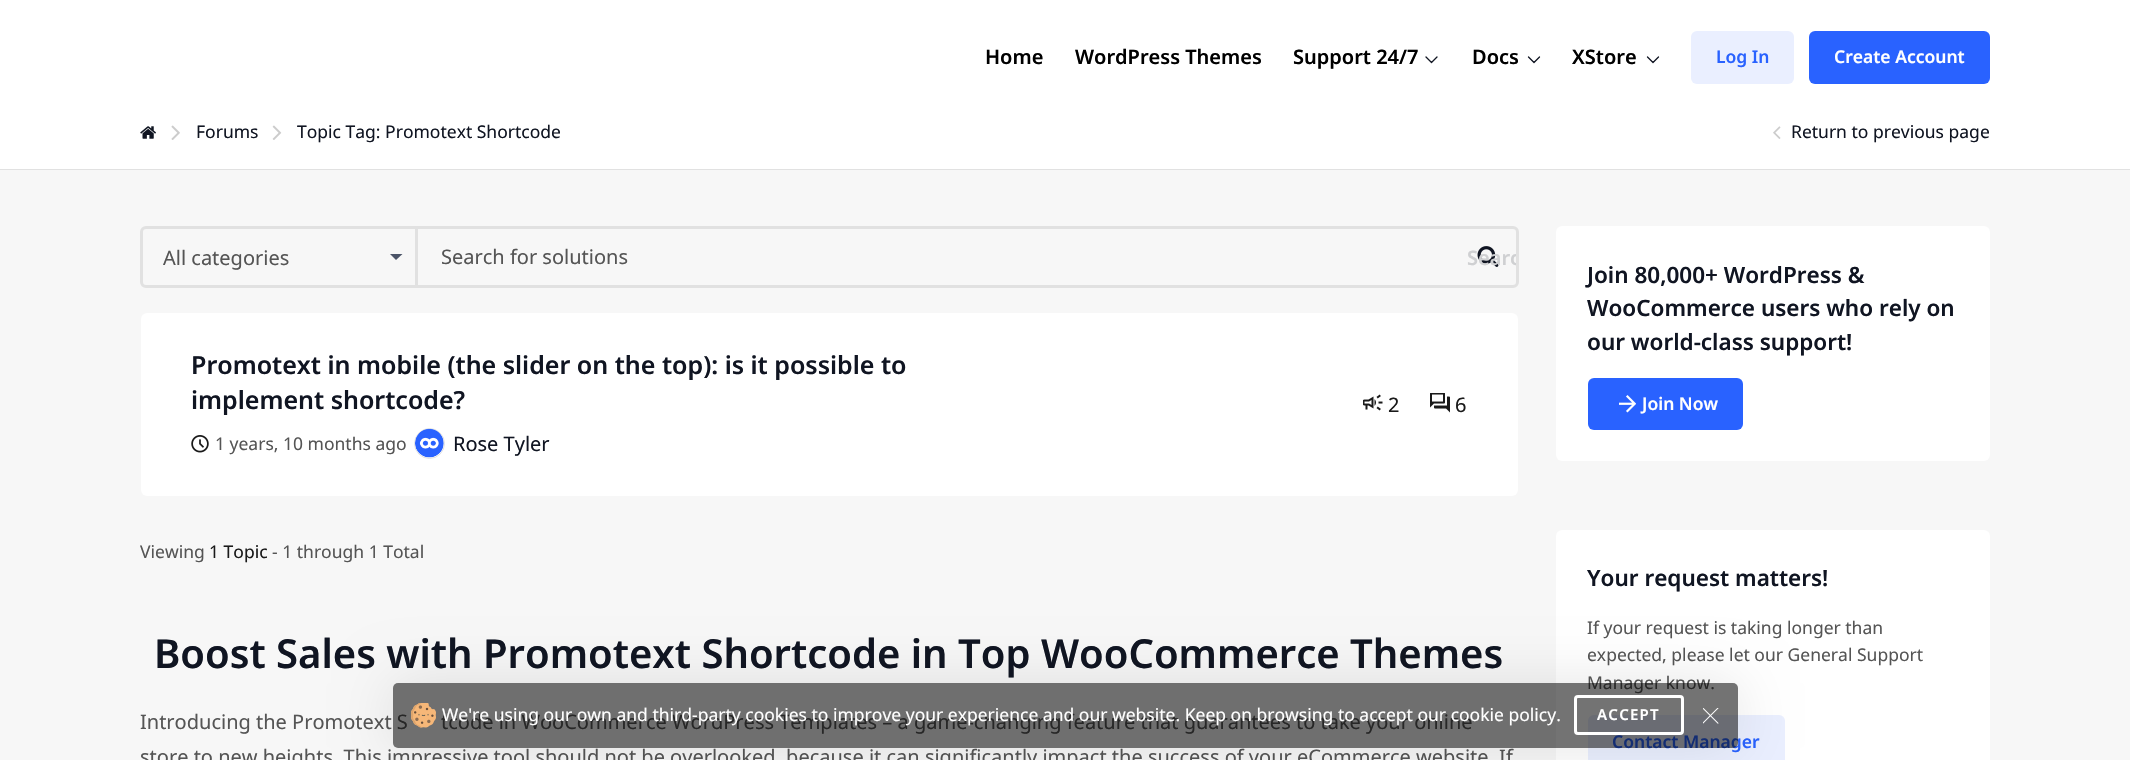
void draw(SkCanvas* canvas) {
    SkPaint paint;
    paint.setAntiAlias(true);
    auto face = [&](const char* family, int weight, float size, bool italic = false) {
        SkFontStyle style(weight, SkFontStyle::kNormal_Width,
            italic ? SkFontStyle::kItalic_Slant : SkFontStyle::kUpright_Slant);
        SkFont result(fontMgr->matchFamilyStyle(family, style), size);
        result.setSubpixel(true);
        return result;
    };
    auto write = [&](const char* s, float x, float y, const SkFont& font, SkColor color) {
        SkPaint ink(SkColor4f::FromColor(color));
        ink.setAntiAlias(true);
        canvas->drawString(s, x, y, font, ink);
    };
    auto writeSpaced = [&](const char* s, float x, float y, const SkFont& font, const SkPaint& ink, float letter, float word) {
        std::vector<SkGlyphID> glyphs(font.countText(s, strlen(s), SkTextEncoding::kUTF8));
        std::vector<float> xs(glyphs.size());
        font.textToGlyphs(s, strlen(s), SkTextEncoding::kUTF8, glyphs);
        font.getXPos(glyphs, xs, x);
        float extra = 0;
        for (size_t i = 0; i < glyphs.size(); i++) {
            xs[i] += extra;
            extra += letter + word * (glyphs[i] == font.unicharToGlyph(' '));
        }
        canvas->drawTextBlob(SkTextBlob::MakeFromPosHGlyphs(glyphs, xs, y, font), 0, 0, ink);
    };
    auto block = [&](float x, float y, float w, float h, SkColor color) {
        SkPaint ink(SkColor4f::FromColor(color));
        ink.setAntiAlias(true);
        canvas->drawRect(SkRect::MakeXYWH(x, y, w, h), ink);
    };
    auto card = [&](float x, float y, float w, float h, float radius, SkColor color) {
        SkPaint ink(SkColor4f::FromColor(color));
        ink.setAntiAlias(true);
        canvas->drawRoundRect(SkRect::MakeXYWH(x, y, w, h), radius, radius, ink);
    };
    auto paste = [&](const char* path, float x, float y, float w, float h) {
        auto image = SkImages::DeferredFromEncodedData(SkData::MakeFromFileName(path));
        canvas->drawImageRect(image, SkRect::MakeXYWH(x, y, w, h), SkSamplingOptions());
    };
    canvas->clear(SK_ColorWHITE);
    auto kFont1 = face("Noto Sans", 600, 20);
    write("Home", 985, 64, kFont1, SK_ColorBLACK);
    write("WordPress Themes", 1075, 64, kFont1, SK_ColorBLACK);
    write("Support 24/7", 1293, 64, kFont1, SK_ColorBLACK);
    paint.setStyle(SkPaint::kStroke_Style);
    paint.setStrokeWidth(1.3f);
    paint.setStrokeCap(SkPaint::kRound_Cap);
    paint.setStrokeJoin(SkPaint::kRound_Join);
    paint.setColor(SkColorSetRGB(16, 21, 34));
    canvas->drawPath(SkPathBuilder().moveTo(1437, 57).lineTo(1431.5f, 62.5f).lineTo(1426, 57).detach(), paint);
    write("Docs", 1472, 64, kFont1, SK_ColorBLACK);
    canvas->drawPath(SkPathBuilder().moveTo(1539.5f, 57).lineTo(1534, 62.5f).lineTo(1528.5f, 57).detach(), paint);
    write("XStore", 1572, 64, kFont1, SK_ColorBLACK);
    canvas->drawPath(SkPathBuilder().moveTo(1658.5f, 57).lineTo(1653, 62.5f).lineTo(1647.5f, 57).detach(), paint);
    card(1691, 31, 103, 53, 6, SkColorSetRGB(234, 239, 255));
    auto kFont2 = face("Noto Sans", 600, 17.5f);
    write("Log In", 1716, 63, kFont2, SkColorSetRGB(41, 98, 255));
    card(1809, 31, 181, 53, 6, SkColorSetRGB(41, 98, 255));
    write("Create Account", 1834, 63, kFont2, SK_ColorWHITE);
    block(0, 169, 2130, 1, SkColorSetRGB(225, 225, 225));
    paste("pic1.png", 140, 126, 16, 13);
    paste("pic2.png", 171, 125, 9, 15);
    auto kFont3 = face("Noto Sans", 400, 17.5f);
    write("Forums", 196, 138, kFont3, SkColorSetRGB(16, 21, 34));
    paste("pic3.png", 272, 125, 10, 15);
    write("Topic Tag: Promotext Shortcode", 297, 138, kFont3, SkColorSetRGB(16, 21, 34));
    paste("pic4.png", 1773, 126, 8, 13);
    write("Return to previous page", 1791, 138, kFont3, SkColorSetRGB(16, 21, 34));
    block(0, 170, 2130, 590, SkColorSetRGB(247, 247, 247));
    paint.setStrokeWidth(3);
    paint.setStrokeCap(SkPaint::kButt_Cap);
    paint.setStrokeJoin(SkPaint::kMiter_Join);
    paint.setColor(SkColorSetRGB(225, 225, 225));
    canvas->drawRoundRect(SkRect::MakeXYWH(141.5f, 227.5f, 1376, 59), 4.5f, 4.5f, paint);
    block(415, 229, 3, 56, SkColorSetRGB(225, 225, 225));
    auto kFont4 = face("Noto Sans", 400, 20);
    write("All categories", 163, 265, kFont4, SkColorSetRGB(85, 85, 85));
    paint.setStyle(SkPaint::kFill_Style);
    paint.setColor(SkColorSetRGB(75, 84, 104));
    canvas->drawPath(SkPathBuilder().moveTo(390, 254).lineTo(402.5f, 254).lineTo(396, 260).close().detach(), paint);
    write("Search for solutions", 441, 264, kFont4, SkColorSetRGB(85, 85, 85));
    paste("pic5.png", 1477, 246, 22, 21);
    canvas->save();
    canvas->clipRect(SkRect::MakeXYWH(1460, 229, 56, 56));
    write("Searc", 1467, 265, kFont1, SkColorSetRGB(207, 208, 210));
    canvas->restore();
    card(141, 313, 1377, 183, 6, SK_ColorWHITE);
    auto kFont5 = face("Noto Sans", 600, 25);
    write("Promotext in mobile (the slider on the top): is it possible to", 191, 374, kFont5, SkColorSetRGB(16, 21, 34));
    write("implement shortcode?", 191, 409, kFont5, SkColorSetRGB(16, 21, 34));
    paste("pic6.png", 191, 435, 18, 18);
    write("1 years, 10 months ago", 215, 450, kFont3, SkColorSetRGB(85, 85, 85));
    paint.setStyle(SkPaint::kStroke_Style);
    paint.setStrokeWidth(1);
    paint.setColor(SkColorSetRGB(225, 225, 225));
    canvas->drawCircle(429.5f, 443.5f, 15, paint);
    paste("pic7.png", 415, 428, 29, 30);
    write("Rose Tyler", 453, 451, kFont4, SkColorSetRGB(16, 21, 34));
    paste("pic8.png", 1363, 394, 20, 17);
    write("2", 1388, 412, kFont4, SkColorSetRGB(26, 26, 26));
    paste("pic9.png", 1430, 393, 20, 20);
    write("6", 1455, 412, kFont4, SkColorSetRGB(26, 26, 26));
    write("Viewing", 140, 558, kFont3, SkColorSetRGB(85, 85, 85));
    write("1 Topic", 209, 558, kFont3, SkColorSetRGB(26, 26, 26));
    write("- 1 through 1 Total", 272, 558, kFont3, SkColorSetRGB(85, 85, 85));
    auto kFont6 = face("Noto Sans", 600, 40);
    write("Boost Sales with Promotext Shortcode in Top WooCommerce Themes", 154, 668, kFont6, SkColorSetRGB(16, 21, 34));
    write("Introducing the Promotext S", 140, 729, kFont4, SkColorSetRGB(85, 85, 85));
    write("tcode in WooCommerce WordPress Templates – a game-changing feature that guarantees to take your online", 441, 729, kFont4, SkColorSetRGB(85, 85, 85));
    write("store to new heights. This impressive tool should not be overlooked, because it can significantly impact the success of your eCommerce website. If", 140, 764, kFont4, SkColorSetRGB(85, 85, 85));
    card(1556, 226, 434, 235, 6, SK_ColorWHITE);
    auto kFont7 = face("Noto Sans", 600, 22.5f);
    write("Join 80,000+ WordPress &", 1587, 283, kFont7, SkColorSetRGB(16, 21, 34));
    write("WooCommerce users who rely on", 1587, 316, kFont7, SkColorSetRGB(16, 21, 34));
    write("our world-class support!", 1587, 350, kFont7, SkColorSetRGB(16, 21, 34));
    card(1588, 378, 155, 52, 6, SkColorSetRGB(41, 98, 255));
    paste("pic10.png", 1619, 395, 17, 18);
    write("Join Now", 1642, 410, kFont2, SK_ColorWHITE);
    card(1556, 530, 434, 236, 6, SK_ColorWHITE);
    write("Your request matters!", 1587, 586, kFont7, SkColorSetRGB(16, 21, 34));
    write("If your request is taking longer than", 1587, 634, kFont3, SkColorSetRGB(85, 85, 85));
    write("expected, please let our General Support", 1587, 661, kFont3, SkColorSetRGB(85, 85, 85));
    write("Manager know.", 1587, 689, kFont3, SkColorSetRGB(85, 85, 85));
    card(1588, 715, 197, 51, 6, SkColorSetRGB(234, 239, 255));
    write("Contact Manager", 1612, 748, kFont2, SkColorSetRGB(41, 98, 255));
    canvas->save();
    canvas->clipPath(SkPathBuilder(SkPathFillType::kEvenOdd).moveTo(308, 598).lineTo(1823, 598).lineTo(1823, 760).lineTo(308, 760).close().moveTo(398, 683).lineTo(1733, 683).cubicTo(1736, 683, 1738, 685, 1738, 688).lineTo(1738, 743).cubicTo(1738, 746, 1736, 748, 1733, 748).lineTo(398, 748).cubicTo(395, 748, 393, 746, 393, 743).lineTo(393, 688).cubicTo(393, 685, 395, 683, 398, 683).close().detach(), true);
    paint.setStyle(SkPaint::kFill_Style);
    paint.setColor(SkColorSetARGB(26, 0, 0, 0));
    paint.setMaskFilter(SkMaskFilter::MakeBlur(kNormal_SkBlurStyle, 28));
    canvas->drawRoundRect(SkRect::MakeXYWH(393, 683, 1345, 65), 5, 5, paint);
    paint.setMaskFilter(nullptr);
    canvas->restore();
    card(393, 683, 1345, 65, 5, SkColorSetARGB(140, 0, 0, 0));
    paste("pic11.png", 411, 703, 25, 25);
    write("We're using our own and third-party cookies to improve your experience and our website. Keep on browsing to accept our cookie policy.", 442, 721, kFont3, SK_ColorWHITE);
    paint.setStyle(SkPaint::kStroke_Style);
    paint.setStrokeWidth(3);
    paint.setColor(SK_ColorWHITE);
    canvas->drawRoundRect(SkRect::MakeXYWH(1575.5f, 696.5f, 107, 37), 2.5f, 2.5f, paint);
    auto kFont8 = face("Noto Sans", 600, 15);
    paint.setStyle(SkPaint::kFill_Style);
    writeSpaced("ACCEPT", 1597, 720, kFont8, paint, 1.25f, 0);
    paste("pic12.png", 1703, 708, 16, 16);
}
